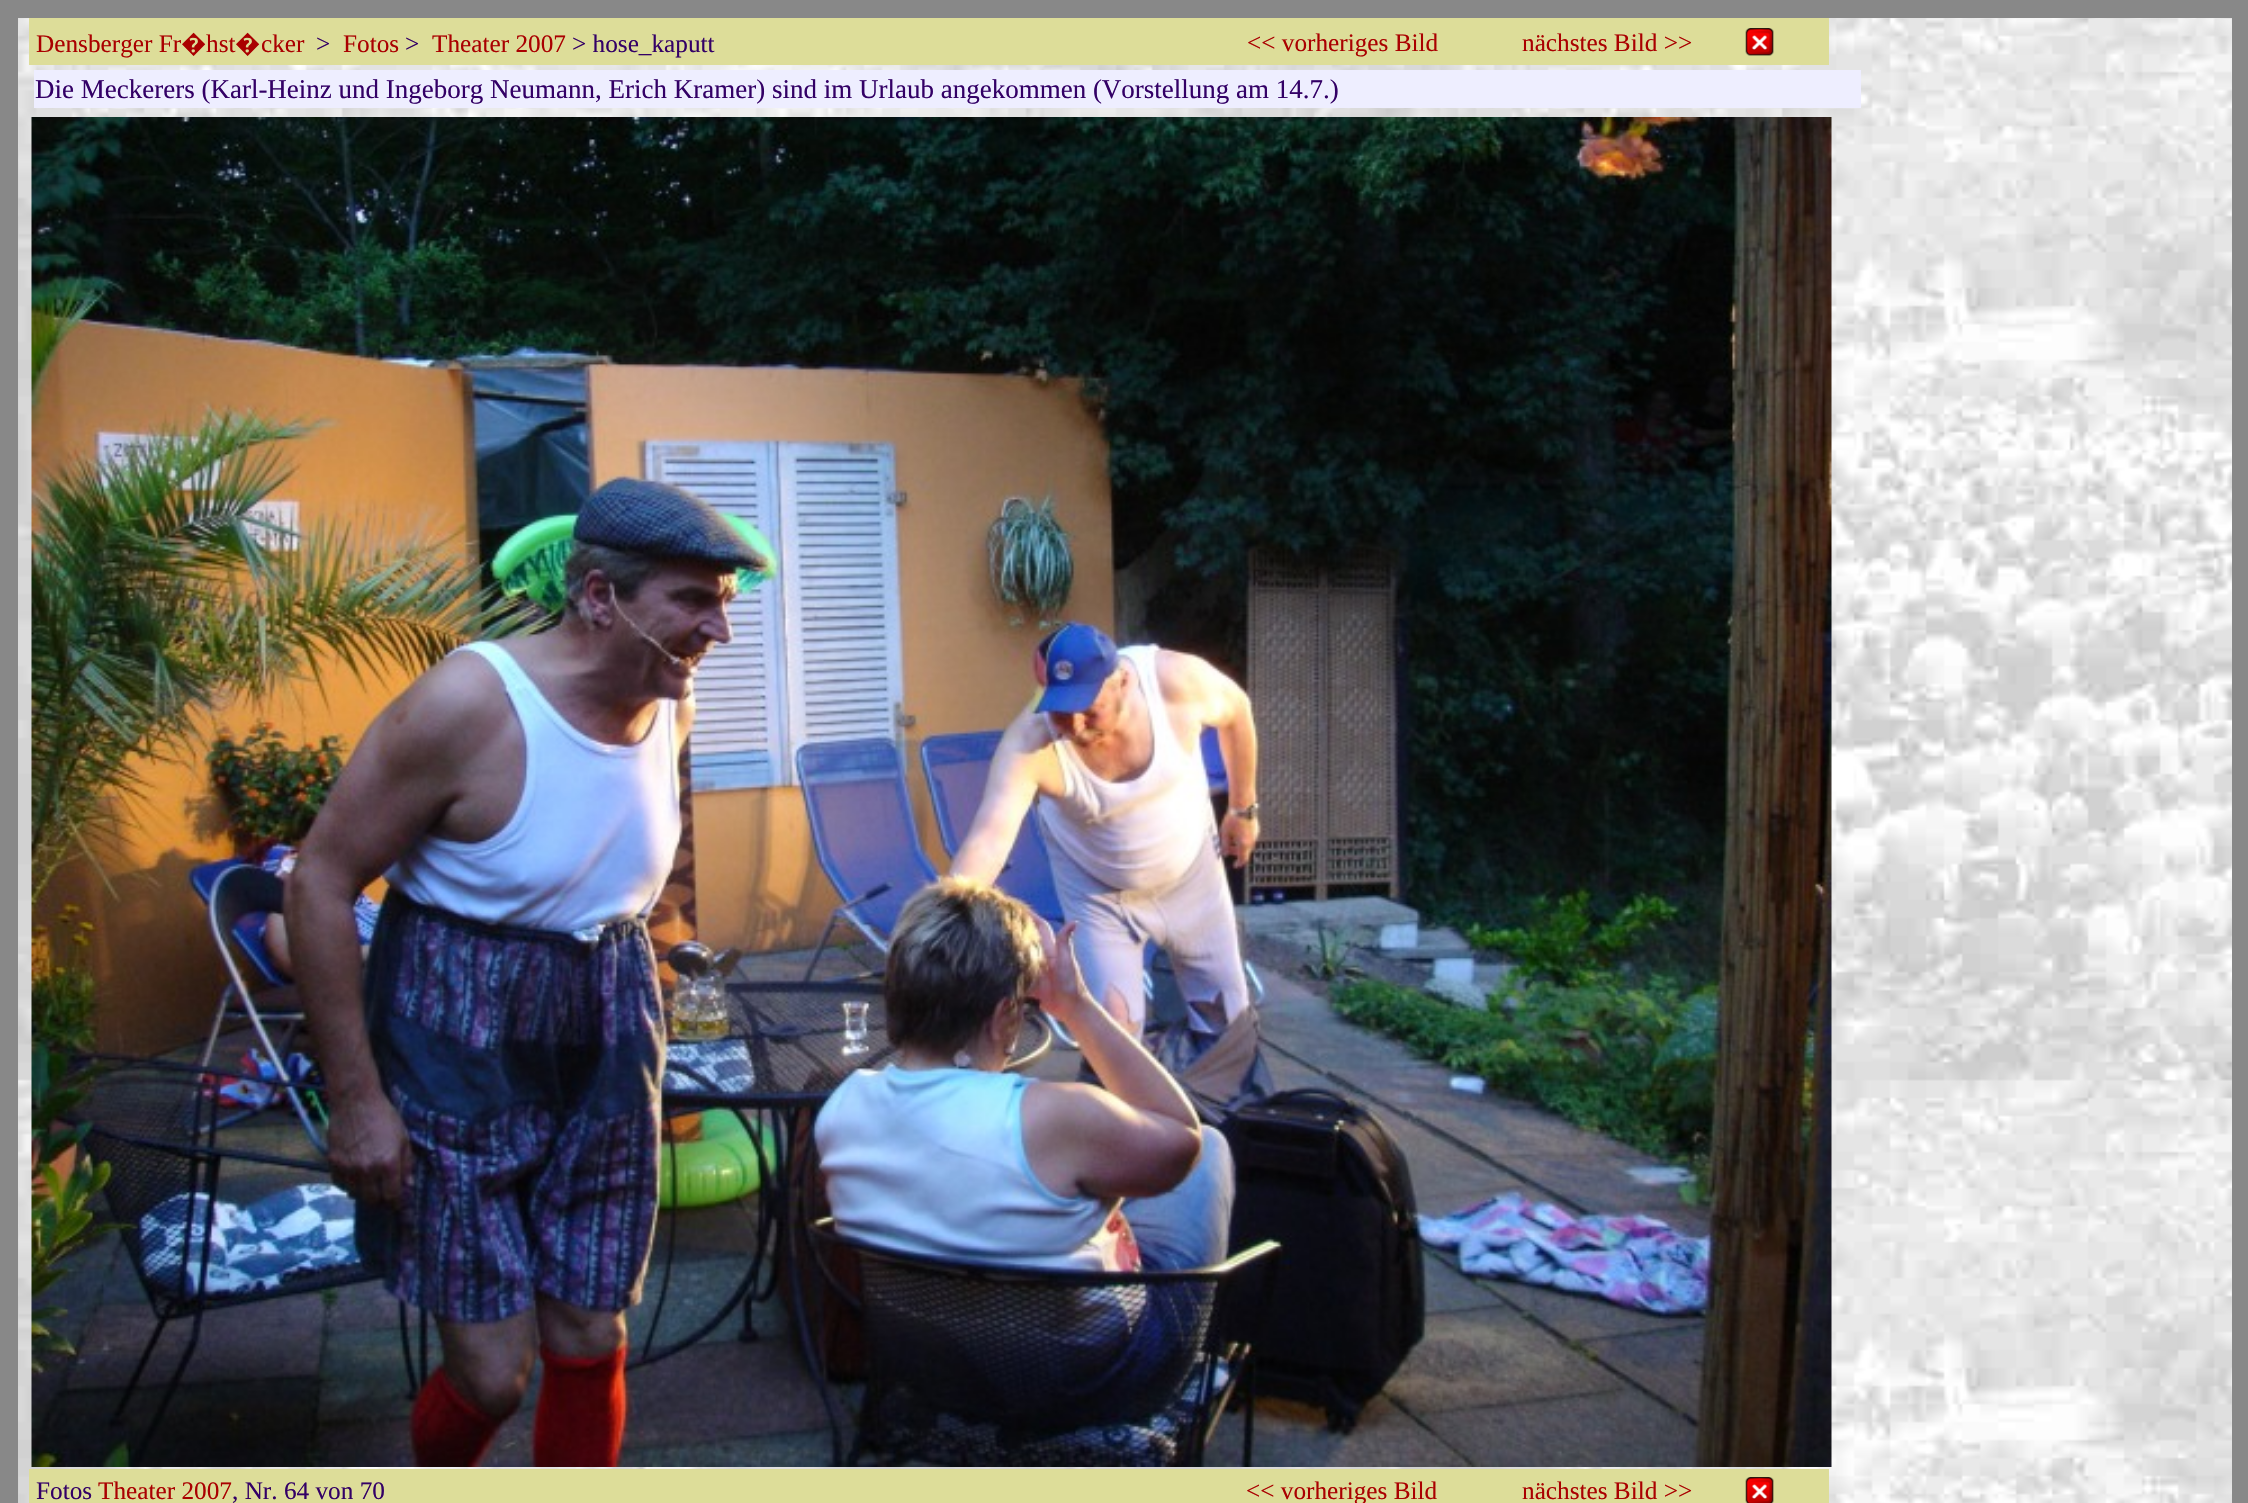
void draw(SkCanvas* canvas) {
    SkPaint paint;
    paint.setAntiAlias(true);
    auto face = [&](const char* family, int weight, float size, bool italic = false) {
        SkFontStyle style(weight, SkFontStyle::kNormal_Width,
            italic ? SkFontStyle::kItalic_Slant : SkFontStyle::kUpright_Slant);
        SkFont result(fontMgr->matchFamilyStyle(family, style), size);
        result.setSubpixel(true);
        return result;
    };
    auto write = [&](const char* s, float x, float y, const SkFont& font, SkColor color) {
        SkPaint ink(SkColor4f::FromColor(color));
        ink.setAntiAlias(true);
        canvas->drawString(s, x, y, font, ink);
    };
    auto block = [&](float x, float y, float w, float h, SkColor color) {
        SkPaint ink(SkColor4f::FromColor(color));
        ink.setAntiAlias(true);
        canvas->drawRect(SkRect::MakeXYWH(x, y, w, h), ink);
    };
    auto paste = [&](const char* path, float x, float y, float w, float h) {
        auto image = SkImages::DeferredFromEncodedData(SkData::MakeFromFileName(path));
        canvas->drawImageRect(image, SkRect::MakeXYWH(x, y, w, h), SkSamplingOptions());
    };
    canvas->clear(SkColorSetRGB(136, 136, 136));
    paste("pic1.png", 18, 18, 2214, 1485);
    block(29, 18, 1800, 47, SkColorSetRGB(221, 221, 153));
    auto kFont1 = face("Liberation Serif", 400, 25.25f);
    write("Densberger Fr", 36, 52, kFont1, SkColorSetRGB(170, 0, 0));
    auto kFont2 = face("Noto Sans", 400, 25.25f);
    write("�", 181, 52, kFont2, SkColorSetRGB(170, 0, 0));
    write("hst", 206, 52, kFont1, SkColorSetRGB(170, 0, 0));
    write("�", 235, 52, kFont2, SkColorSetRGB(170, 0, 0));
    write("cker", 261, 52, kFont1, SkColorSetRGB(170, 0, 0));
    write(">", 316, 52, kFont1, SkColorSetRGB(51, 0, 102));
    write("Fotos", 343, 52, kFont1, SkColorSetRGB(170, 0, 0));
    write(">", 405, 52, kFont1, SkColorSetRGB(51, 0, 102));
    write("Theater 2007", 432, 52, kFont1, SkColorSetRGB(170, 0, 0));
    write("> hose_kaputt", 572, 52, kFont1, SkColorSetRGB(51, 0, 102));
    write("<< vorheriges Bild", 1247, 51, kFont1, SkColorSetRGB(170, 0, 0));
    write("nächstes Bild >>", 1522, 51, kFont1, SkColorSetRGB(170, 0, 0));
    paste("pic2.png", 1745, 28, 29, 28);
    block(34, 70, 1827, 38, SkColorSetRGB(238, 238, 255));
    auto kFont3 = face("Liberation Serif", 400, 27);
    write("Die Meckerers (Karl-Heinz und Ingeborg Neumann, Erich Kramer) sind im Urlaub angekommen (Vorstellung am 14.7.)", 35, 98, kFont3, SkColorSetRGB(51, 0, 102));
    paste("pic3.png", 31, 117, 1801, 1350);
    block(29, 1469, 1800, 34, SkColorSetRGB(221, 221, 153));
    write("Fotos", 36, 1499, kFont1, SkColorSetRGB(51, 0, 102));
    write("Theater 2007", 98, 1499, kFont1, SkColorSetRGB(170, 0, 0));
    write(", Nr. 64 von 70", 232, 1499, kFont1, SkColorSetRGB(51, 0, 102));
    write("<< vorheriges Bild", 1246, 1499, kFont1, SkColorSetRGB(170, 0, 0));
    write("nächstes Bild >>", 1522, 1499, kFont1, SkColorSetRGB(170, 0, 0));
    paste("pic4.png", 1745, 1477, 29, 26);
}
